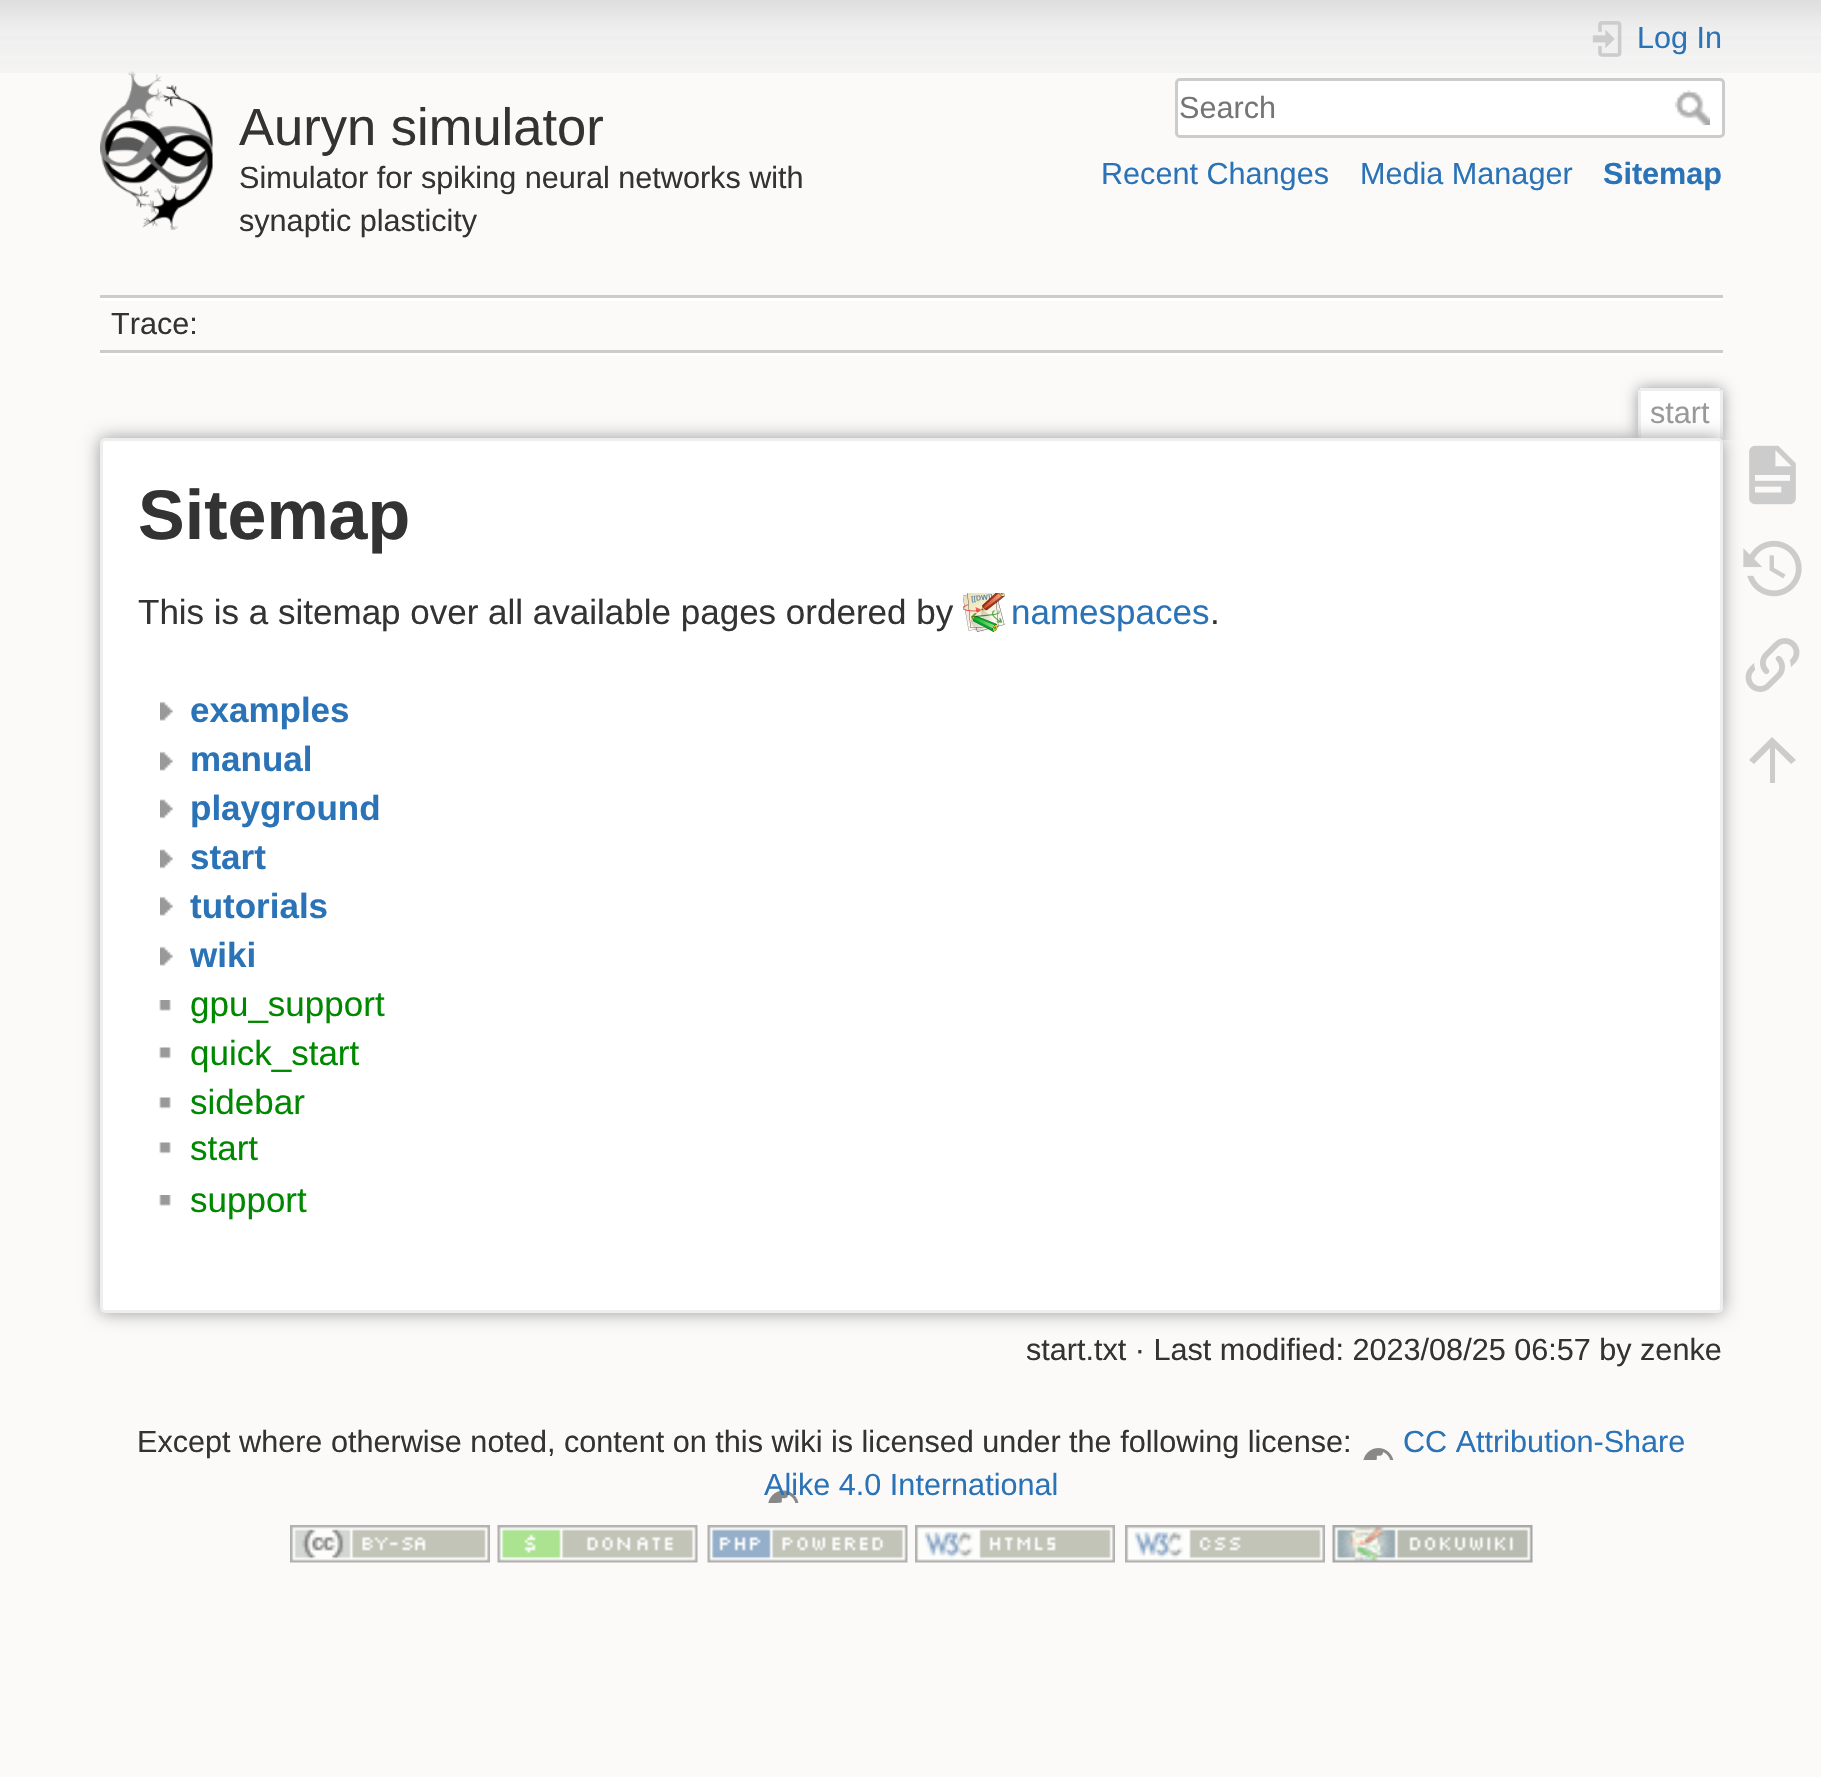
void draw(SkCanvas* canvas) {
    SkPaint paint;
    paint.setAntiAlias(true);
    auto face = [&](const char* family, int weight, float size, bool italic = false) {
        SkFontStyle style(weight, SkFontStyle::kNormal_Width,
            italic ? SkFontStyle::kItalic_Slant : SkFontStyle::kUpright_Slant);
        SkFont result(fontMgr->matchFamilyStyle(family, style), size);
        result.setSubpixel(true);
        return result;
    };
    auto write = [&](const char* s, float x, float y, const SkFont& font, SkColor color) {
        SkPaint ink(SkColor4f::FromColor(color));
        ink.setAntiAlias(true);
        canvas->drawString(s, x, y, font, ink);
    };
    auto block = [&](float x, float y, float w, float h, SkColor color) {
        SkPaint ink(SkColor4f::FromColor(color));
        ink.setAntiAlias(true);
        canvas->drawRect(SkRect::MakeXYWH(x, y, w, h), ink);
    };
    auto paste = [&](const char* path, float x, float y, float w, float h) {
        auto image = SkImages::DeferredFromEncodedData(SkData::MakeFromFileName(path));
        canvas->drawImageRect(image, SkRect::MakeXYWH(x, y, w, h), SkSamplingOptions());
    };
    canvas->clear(SkColorSetRGB(251, 250, 249));
    paste("pic1.png", 0, 0, 1821, 73);
    paste("pic2.png", 100, 71, 113, 159);
    auto kFont1 = face("Liberation Sans", 400, 52.5f);
    write("Auryn simulator", 239, 145, kFont1, SkColorSetRGB(51, 51, 51));
    auto kFont2 = face("Liberation Sans", 400, 30.6f);
    write("Simulator for spiking neural networks with", 239, 188, kFont2, SkColorSetRGB(51, 51, 51));
    write("synaptic plasticity", 239, 231, kFont2, SkColorSetRGB(51, 51, 51));
    paste("pic3.png", 1592, 21, 30, 36);
    write("Log In", 1637, 48, kFont2, SkColorSetRGB(43, 115, 183));
    paint.setColor(SK_ColorWHITE);
    canvas->drawRoundRect(SkRect::MakeXYWH(1176.5f, 79.5f, 547, 57), 3.5f, 3.5f, paint);
    paint.setStyle(SkPaint::kStroke_Style);
    paint.setStrokeWidth(3);
    paint.setColor(SkColorSetRGB(204, 204, 204));
    canvas->drawRoundRect(SkRect::MakeXYWH(1176.5f, 79.5f, 547, 57), 3.5f, 3.5f, paint);
    write("Search", 1179, 118, kFont2, SkColorSetRGB(117, 117, 117));
    paste("pic4.png", 1675, 90, 35, 35);
    write("Recent Changes", 1101, 184, kFont2, SkColorSetRGB(43, 115, 183));
    write("Media Manager", 1360, 184, kFont2, SkColorSetRGB(43, 115, 183));
    auto kFont3 = face("Liberation Sans", 700, 30.6f);
    write("Sitemap", 1603, 184, kFont3, SkColorSetRGB(43, 115, 183));
    block(100, 295, 1623, 3, SkColorSetRGB(204, 204, 204));
    block(100, 353, 1623, 3, SK_ColorWHITE);
    block(100, 298, 1623, 3, SK_ColorWHITE);
    block(100, 350, 1623, 3, SkColorSetRGB(204, 204, 204));
    write("Trace:", 111, 334, kFont2, SkColorSetRGB(51, 51, 51));
    canvas->save();
    canvas->clipRect(SkRect::MakeXYWH(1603, 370, 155, 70));
    paint.setStyle(SkPaint::kFill_Style);
    paint.setColor(SkColorSetRGB(153, 153, 153));
    paint.setMaskFilter(SkMaskFilter::MakeBlur(kNormal_SkBlurStyle, 7.5f));
    canvas->drawRoundRect(SkRect::MakeXYWH(1638, 388, 85, 52), 5, 5, paint);
    paint.setMaskFilter(nullptr);
    canvas->restore();
    paint.setColor(SK_ColorWHITE);
    canvas->drawPath(SkPathBuilder().moveTo(1642.5f, 390).lineTo(1717.5f, 390).cubicTo(1719, 390, 1720, 391, 1720, 392.5f).lineTo(1720, 440).lineTo(1640, 440).lineTo(1640, 392.5f).cubicTo(1640, 391, 1641, 390, 1642.5f, 390).close().detach(), paint);
    block(1640, 388, 80, 3, SkColorSetRGB(238, 238, 238));
    block(1720, 390, 3, 50, SkColorSetRGB(238, 238, 238));
    block(1638, 390, 3, 50, SkColorSetRGB(238, 238, 238));
    write("start", 1650, 423, kFont2, SkColorSetRGB(153, 153, 153));
    paint.setColor(SkColorSetRGB(153, 153, 153));
    paint.setMaskFilter(SkMaskFilter::MakeBlur(kNormal_SkBlurStyle, 9));
    canvas->drawRoundRect(SkRect::MakeXYWH(100, 438, 1623, 875), 5, 5, paint);
    paint.setMaskFilter(nullptr);
    paint.setColor(SK_ColorWHITE);
    canvas->drawRoundRect(SkRect::MakeXYWH(101.5f, 439.5f, 1620, 872), 3.5f, 3.5f, paint);
    paint.setStyle(SkPaint::kStroke_Style);
    paint.setColor(SkColorSetRGB(238, 238, 238));
    canvas->drawRoundRect(SkRect::MakeXYWH(101.5f, 439.5f, 1620, 872), 3.5f, 3.5f, paint);
    auto kFont4 = face("Liberation Sans", 700, 70);
    write("Sitemap", 138, 539, kFont4, SkColorSetRGB(51, 51, 51));
    auto kFont5 = face("Liberation Sans", 400, 35);
    write("This is a sitemap over all available pages ordered by", 138, 624, kFont5, SkColorSetRGB(51, 51, 51));
    paste("pic5.png", 963, 593, 42, 39);
    write("namespaces", 1011, 624, kFont5, SkColorSetRGB(43, 115, 183));
    write(".", 1210, 624, kFont5, SkColorSetRGB(51, 51, 51));
    paste("pic6.png", 160, 701, 13, 20);
    auto kFont6 = face("Liberation Sans", 700, 35);
    write("examples", 190, 722, kFont6, SkColorSetRGB(43, 115, 183));
    paste("pic6.png", 160, 751, 13, 20);
    write("manual", 190, 771, kFont6, SkColorSetRGB(43, 115, 183));
    paste("pic7.png", 160, 799, 13, 20);
    write("playground", 190, 820, kFont6, SkColorSetRGB(43, 115, 183));
    paste("pic7.png", 160, 849, 13, 20);
    write("start", 190, 869, kFont6, SkColorSetRGB(43, 115, 183));
    paste("pic6.png", 160, 896, 13, 20);
    write("tutorials", 190, 918, kFont6, SkColorSetRGB(43, 115, 183));
    paste("pic6.png", 160, 946, 13, 20);
    write("wiki", 190, 967, kFont6, SkColorSetRGB(43, 115, 183));
    paste("pic8.png", 159, 1000, 12, 11);
    write("gpu_support", 190, 1016, kFont5, SkColorSetRGB(0, 136, 0));
    paste("pic9.png", 159, 1047, 12, 12);
    write("quick_start", 190, 1065, kFont5, SkColorSetRGB(0, 136, 0));
    paste("pic9.png", 159, 1097, 12, 12);
    write("sidebar", 190, 1114, kFont5, SkColorSetRGB(0, 136, 0));
    paste("pic9.png", 159, 1142, 12, 12);
    write("start", 190, 1160, kFont5, SkColorSetRGB(0, 136, 0));
    paste("pic8.png", 159, 1195, 12, 11);
    write("support", 190, 1212, kFont5, SkColorSetRGB(0, 136, 0));
    write("start.txt · Last modified: 2023/08/25 06:57 by zenke", 1026, 1360, kFont2, SkColorSetRGB(51, 51, 51));
    paste("pic10.png", 1749, 445, 47, 60);
    paste("pic11.png", 1743, 540, 59, 57);
    paste("pic12.png", 1745, 638, 55, 54);
    paint.setStyle(SkPaint::kFill_Style);
    paint.setColor(SkColorSetRGB(204, 204, 204));
    canvas->drawPath(SkPathBuilder().moveTo(1775, 783).lineTo(1770, 783).lineTo(1770, 748).lineTo(1754, 764).lineTo(1749, 760).lineTo(1772, 737).lineTo(1796, 760).lineTo(1791, 764).lineTo(1775, 748).close().detach(), paint);
    write("Except where otherwise noted, content on this wiki is licensed under the following license:", 137, 1452, kFont2, SkColorSetRGB(51, 51, 51));
    write("CC Attribution-Share", 1403, 1452, kFont2, SkColorSetRGB(43, 115, 183));
    paste("pic13.png", 768, 1448, 626, 55);
    write("Alike 4.0 International", 764, 1495, kFont2, SkColorSetRGB(43, 115, 183));
    paste("pic14.png", 290, 1525, 200, 38);
    paste("pic15.png", 497, 1525, 201, 38);
    paste("pic16.png", 707, 1525, 201, 38);
    paste("pic17.png", 915, 1525, 200, 38);
    paste("pic18.png", 1125, 1525, 200, 38);
    paste("pic19.png", 1332, 1525, 201, 38);
}
